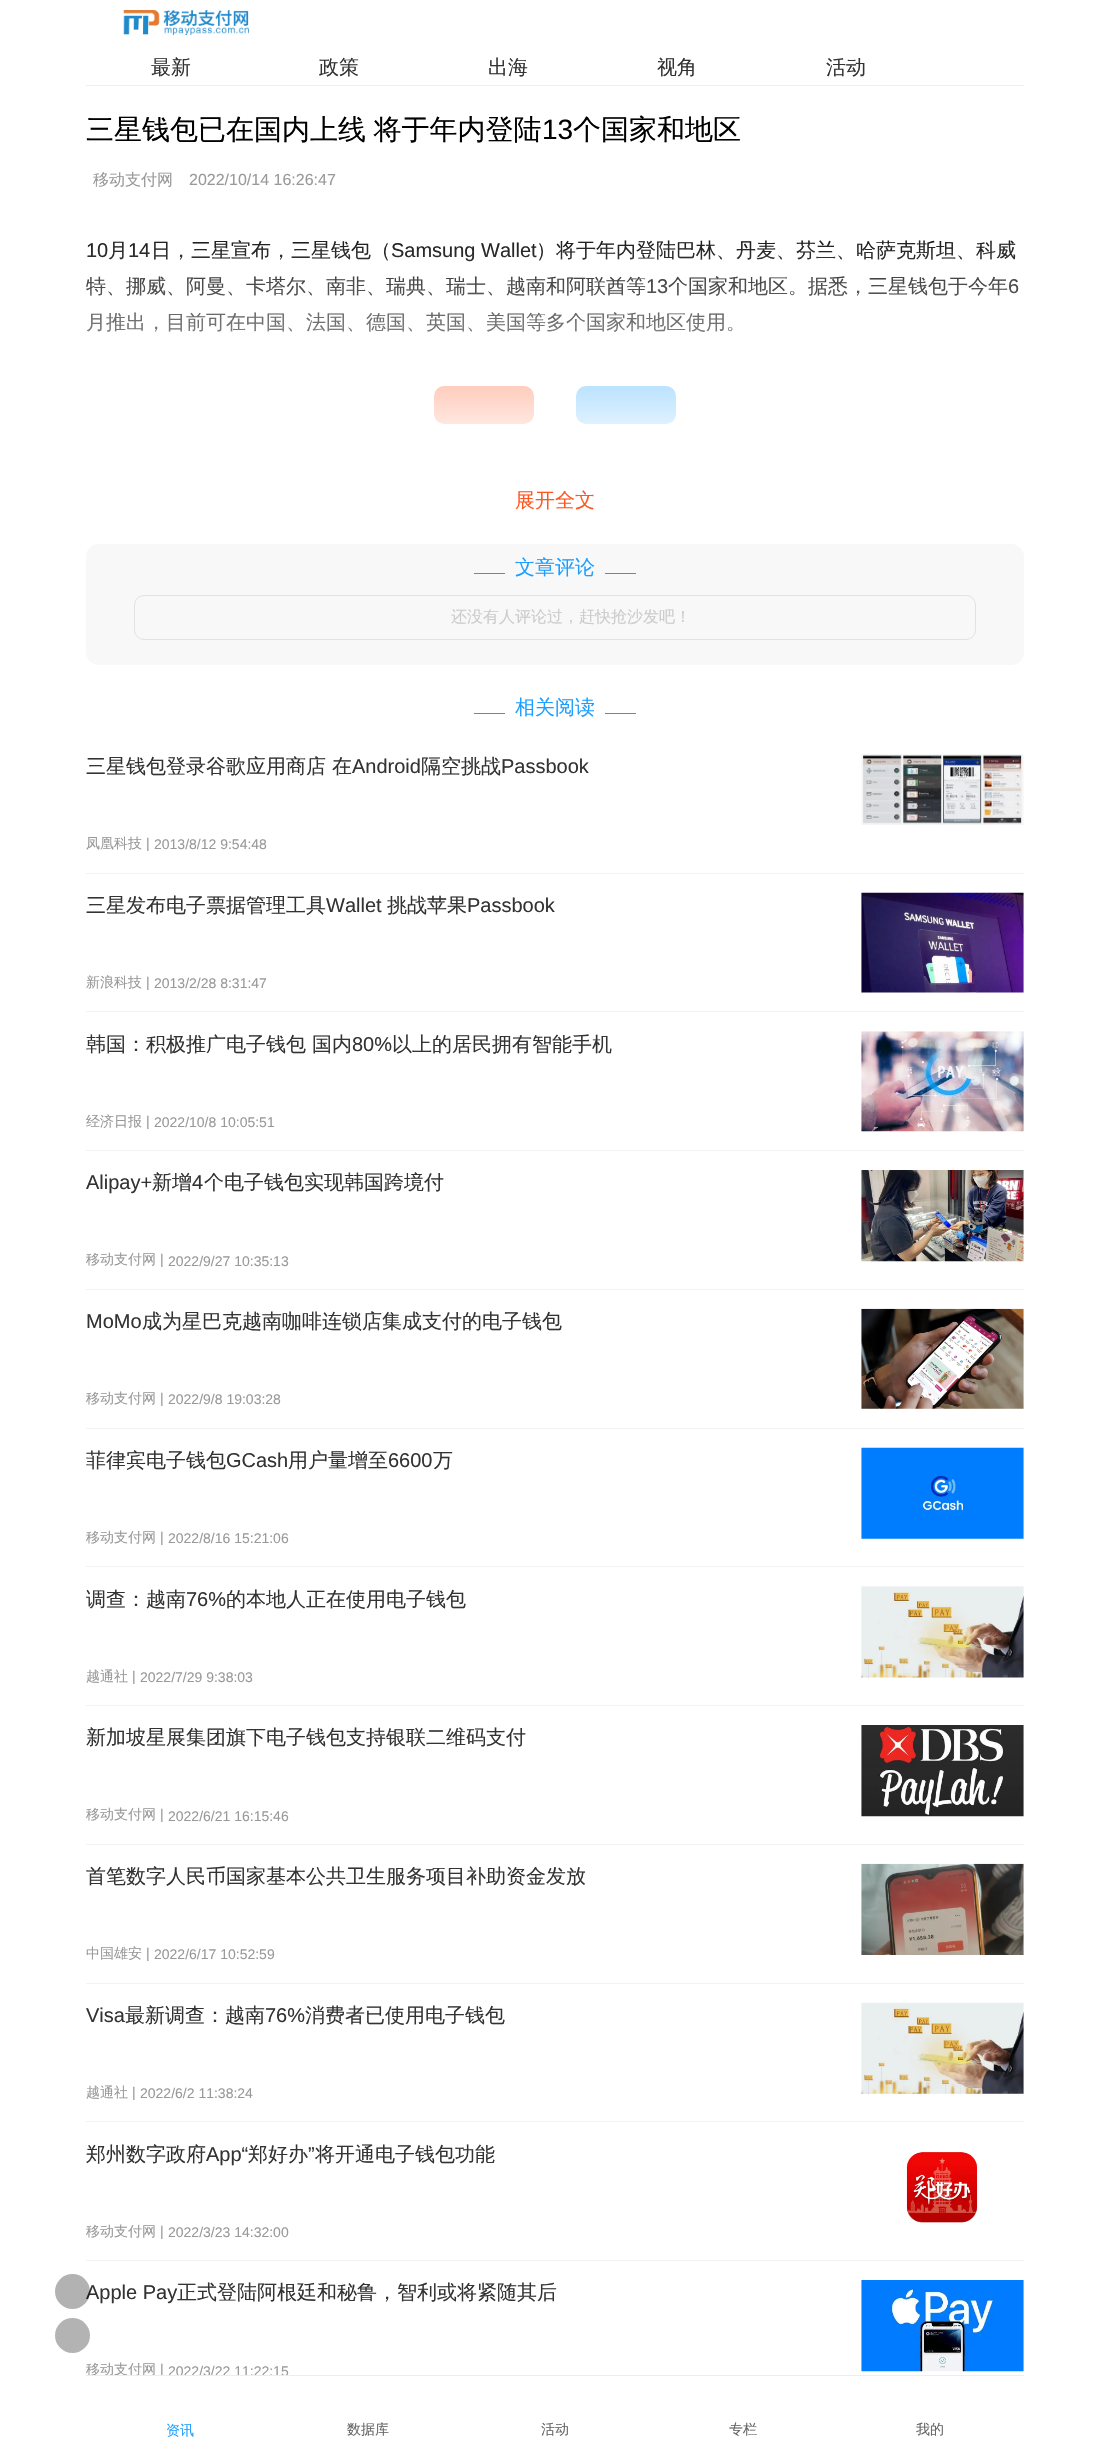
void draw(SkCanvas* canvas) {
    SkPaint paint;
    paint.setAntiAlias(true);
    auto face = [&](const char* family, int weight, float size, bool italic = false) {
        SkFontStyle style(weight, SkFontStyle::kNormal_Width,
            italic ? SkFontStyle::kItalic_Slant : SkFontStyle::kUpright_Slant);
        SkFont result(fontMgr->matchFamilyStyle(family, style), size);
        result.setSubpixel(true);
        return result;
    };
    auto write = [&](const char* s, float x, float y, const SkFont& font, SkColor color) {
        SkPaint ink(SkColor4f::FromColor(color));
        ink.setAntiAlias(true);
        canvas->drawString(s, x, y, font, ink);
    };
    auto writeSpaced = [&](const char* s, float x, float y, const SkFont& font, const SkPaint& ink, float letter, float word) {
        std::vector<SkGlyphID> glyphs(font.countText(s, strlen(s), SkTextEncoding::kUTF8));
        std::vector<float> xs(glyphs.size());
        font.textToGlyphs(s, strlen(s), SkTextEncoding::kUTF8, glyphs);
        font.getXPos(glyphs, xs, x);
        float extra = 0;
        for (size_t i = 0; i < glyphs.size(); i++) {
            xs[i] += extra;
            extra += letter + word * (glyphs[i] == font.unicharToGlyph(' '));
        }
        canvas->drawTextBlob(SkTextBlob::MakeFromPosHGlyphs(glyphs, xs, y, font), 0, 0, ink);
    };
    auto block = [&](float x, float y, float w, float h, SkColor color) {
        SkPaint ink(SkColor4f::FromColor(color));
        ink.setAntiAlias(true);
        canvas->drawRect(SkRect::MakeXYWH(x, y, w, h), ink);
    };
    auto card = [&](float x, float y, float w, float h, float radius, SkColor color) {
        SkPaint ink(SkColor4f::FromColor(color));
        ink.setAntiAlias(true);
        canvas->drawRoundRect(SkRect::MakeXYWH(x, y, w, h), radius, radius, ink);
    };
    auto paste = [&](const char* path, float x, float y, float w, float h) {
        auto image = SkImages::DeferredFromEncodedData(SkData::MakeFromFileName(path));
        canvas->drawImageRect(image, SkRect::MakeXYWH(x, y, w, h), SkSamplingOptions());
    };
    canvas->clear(SK_ColorWHITE);
    paste("pic1.png", 123, 10, 126, 25);
    block(86, 85, 938, 1, SkColorSetRGB(238, 238, 238));
    auto kFont1 = face("WenQuanYi Zen Hei", 500, 20);
    write("最新", 151, 74, kFont1, SkColorSetRGB(51, 51, 51));
    write("政策", 319, 74, kFont1, SkColorSetRGB(51, 51, 51));
    write("出海", 488, 74, kFont1, SkColorSetRGB(51, 51, 51));
    write("视角", 657, 74, kFont1, SkColorSetRGB(51, 51, 51));
    write("活动", 826, 74, kFont1, SkColorSetRGB(51, 51, 51));
    auto kFont2 = face("Liberation Sans", 400, 20);
    write("Apple Pay", 86, 2299, kFont2, SkColorSetRGB(51, 51, 51));
    paint.setColor(SkColorSetARGB(77, 0, 0, 0));
    canvas->drawCircle(72.5f, 2291.5f, 17.5f, paint);
    auto kFont3 = face("WenQuanYi Zen Hei", 500, 28);
    paint.setColor(SK_ColorBLACK);
    writeSpaced("三星钱包已在国内上线 将于年内登陆", 86, 139, kFont3, paint, 0, -1);
    auto kFont4 = face("Liberation Sans", 400, 28);
    write("13", 542, 139, kFont4, SK_ColorBLACK);
    write("个国家和地区", 573, 139, kFont3, SK_ColorBLACK);
    auto kFont5 = face("WenQuanYi Zen Hei", 500, 16);
    write("移动支付网", 93, 185, kFont5, SkColorSetRGB(153, 153, 153));
    auto kFont6 = face("Liberation Sans", 400, 16);
    write("2022/10/14 16:26:47", 189, 185, kFont6, SkColorSetRGB(153, 153, 153));
    write("10", 86, 257, kFont2, SK_ColorBLACK);
    write("月", 108, 257, kFont1, SK_ColorBLACK);
    write("14", 128, 257, kFont2, SK_ColorBLACK);
    write("日，三星宣布，三星钱包（", 151, 257, kFont1, SK_ColorBLACK);
    write("Samsung Wallet", 391, 257, kFont2, SK_ColorBLACK);
    write("）将于年内登陆巴林、丹麦、芬兰、哈萨克斯坦、科威", 536, 257, kFont1, SK_ColorBLACK);
    write("特、挪威、阿曼、卡塔尔、南非、瑞典、瑞士、越南和阿联酋等", 86, 293, kFont1, SK_ColorBLACK);
    write("13", 646, 293, kFont2, SK_ColorBLACK);
    write("个国家和地区。据悉，三星钱包于今年", 668, 293, kFont1, SK_ColorBLACK);
    write("6", 1008, 293, kFont2, SK_ColorBLACK);
    write("月推出，目前可在中国、法国、德国、英国、美国等多个国家和地区使用。", 86, 329, kFont1, SK_ColorBLACK);
    card(434, 386, 100, 38, 10, SkColorSetRGB(255, 87, 34));
    card(576, 386, 100, 38, 10, SkColorSetRGB(30, 159, 255));
    {
        const SkColor colors[] = {SkColorSetARGB(0, 255, 255, 255), SK_ColorWHITE};
        const float stops[] = {0, 1};
        const SkPoint ends[] = {{86, 211}, {86, 461}};
        paint.setShader(SkGradientShader::MakeLinear(ends, colors, stops, 2, SkTileMode::kClamp));
        paint.setAlpha(255);
    }
    canvas->drawRect(SkRect::MakeXYWH(86, 240, 933, 184), paint);
    write("展开全文", 515, 507, kFont1, SkColorSetRGB(255, 87, 34));
    card(86, 544, 938, 121, 13, SkColorSetRGB(248, 248, 248));
    block(474, 573, 31, 1, SkColorSetRGB(30, 159, 255));
    write("文章评论", 515, 574, kFont1, SkColorSetRGB(30, 159, 255));
    block(605, 573, 31, 1, SkColorSetRGB(30, 159, 255));
    paint.setStyle(SkPaint::kStroke_Style);
    paint.setStrokeWidth(1);
    paint.setShader(nullptr);
    paint.setColor(SkColorSetRGB(226, 226, 226));
    canvas->drawRoundRect(SkRect::MakeXYWH(134.5f, 595.5f, 841, 44), 9.5f, 9.5f, paint);
    write("还没有人评论过，赶快抢沙发吧！", 451, 622, kFont5, SkColorSetRGB(204, 204, 204));
    block(474, 713, 31, 1, SkColorSetRGB(30, 159, 255));
    write("相关阅读", 515, 714, kFont1, SkColorSetRGB(30, 159, 255));
    block(605, 713, 31, 1, SkColorSetRGB(30, 159, 255));
    block(86, 873, 938, 1, SkColorSetRGB(242, 242, 242));
    write("三星钱包登录谷歌应用商店 在", 86, 773, kFont1, SkColorSetRGB(51, 51, 51));
    write("Android", 352, 773, kFont2, SkColorSetRGB(51, 51, 51));
    write("隔空挑战", 421, 773, kFont1, SkColorSetRGB(51, 51, 51));
    write("Passbook", 501, 773, kFont2, SkColorSetRGB(51, 51, 51));
    auto kFont7 = face("WenQuanYi Zen Hei", 500, 14);
    write("凤凰科技", 86, 848, kFont7, SkColorSetRGB(153, 153, 153));
    auto kFont8 = face("Liberation Sans", 400, 14);
    write("|", 146, 848, kFont8, SkColorSetRGB(153, 153, 153));
    write("2013/8/12 9:54:48", 154, 849, kFont8, SkColorSetRGB(153, 153, 153));
    paste("pic2.png", 861, 754, 163, 71);
    block(86, 1011, 938, 1, SkColorSetRGB(242, 242, 242));
    write("三星发布电子票据管理工具", 86, 912, kFont1, SkColorSetRGB(51, 51, 51));
    write("Wallet", 326, 912, kFont2, SkColorSetRGB(51, 51, 51));
    write("挑战苹果", 387, 912, kFont1, SkColorSetRGB(51, 51, 51));
    write("Passbook", 467, 912, kFont2, SkColorSetRGB(51, 51, 51));
    write("新浪科技", 86, 987, kFont7, SkColorSetRGB(153, 153, 153));
    write("|", 146, 987, kFont8, SkColorSetRGB(153, 153, 153));
    write("2013/2/28 8:31:47", 154, 988, kFont8, SkColorSetRGB(153, 153, 153));
    paste("pic3.png", 861, 892, 163, 101);
    block(86, 1150, 938, 1, SkColorSetRGB(242, 242, 242));
    write("韩国：积极推广电子钱包 国内", 86, 1051, kFont1, SkColorSetRGB(51, 51, 51));
    write("80%", 352, 1051, kFont2, SkColorSetRGB(51, 51, 51));
    write("以上的居民拥有智能手机", 392, 1051, kFont1, SkColorSetRGB(51, 51, 51));
    write("经济日报", 86, 1126, kFont7, SkColorSetRGB(153, 153, 153));
    write("|", 146, 1126, kFont8, SkColorSetRGB(153, 153, 153));
    write("2022/10/8 10:05:51", 154, 1127, kFont8, SkColorSetRGB(153, 153, 153));
    paste("pic4.png", 861, 1031, 163, 101);
    block(86, 1289, 938, 1, SkColorSetRGB(242, 242, 242));
    write("Alipay+", 86, 1189, kFont2, SkColorSetRGB(51, 51, 51));
    write("新增", 152, 1189, kFont1, SkColorSetRGB(51, 51, 51));
    write("4", 192, 1189, kFont2, SkColorSetRGB(51, 51, 51));
    write("个电子钱包实现韩国跨境付", 204, 1189, kFont1, SkColorSetRGB(51, 51, 51));
    write("移动支付网", 86, 1264, kFont7, SkColorSetRGB(153, 153, 153));
    write("|", 160, 1264, kFont8, SkColorSetRGB(153, 153, 153));
    write("2022/9/27 10:35:13", 168, 1266, kFont8, SkColorSetRGB(153, 153, 153));
    paste("pic5.png", 861, 1170, 163, 92);
    block(86, 1428, 938, 1, SkColorSetRGB(242, 242, 242));
    write("MoMo", 86, 1328, kFont2, SkColorSetRGB(51, 51, 51));
    write("成为星巴克越南咖啡连锁店集成支付的电子钱包", 142, 1328, kFont1, SkColorSetRGB(51, 51, 51));
    write("移动支付网", 86, 1403, kFont7, SkColorSetRGB(153, 153, 153));
    write("|", 160, 1403, kFont8, SkColorSetRGB(153, 153, 153));
    write("2022/9/8 19:03:28", 168, 1404, kFont8, SkColorSetRGB(153, 153, 153));
    paste("pic6.png", 861, 1308, 163, 101);
    block(86, 1566, 938, 1, SkColorSetRGB(242, 242, 242));
    write("菲律宾电子钱包", 86, 1467, kFont1, SkColorSetRGB(51, 51, 51));
    write("GCash", 226, 1467, kFont2, SkColorSetRGB(51, 51, 51));
    write("用户量增至", 288, 1467, kFont1, SkColorSetRGB(51, 51, 51));
    write("6600", 388, 1467, kFont2, SkColorSetRGB(51, 51, 51));
    write("万", 433, 1467, kFont1, SkColorSetRGB(51, 51, 51));
    write("移动支付网", 86, 1542, kFont7, SkColorSetRGB(153, 153, 153));
    write("|", 160, 1542, kFont8, SkColorSetRGB(153, 153, 153));
    write("2022/8/16 15:21:06", 168, 1543, kFont8, SkColorSetRGB(153, 153, 153));
    paste("pic7.png", 861, 1447, 163, 92);
    block(86, 1705, 938, 1, SkColorSetRGB(242, 242, 242));
    write("调查：越南", 86, 1606, kFont1, SkColorSetRGB(51, 51, 51));
    write("76%", 186, 1606, kFont2, SkColorSetRGB(51, 51, 51));
    write("的本地人正在使用电子钱包", 226, 1606, kFont1, SkColorSetRGB(51, 51, 51));
    write("越通社", 86, 1681, kFont7, SkColorSetRGB(153, 153, 153));
    write("|", 132, 1681, kFont8, SkColorSetRGB(153, 153, 153));
    write("2022/7/29 9:38:03", 140, 1682, kFont8, SkColorSetRGB(153, 153, 153));
    paste("pic8.png", 861, 1586, 163, 92);
    block(86, 1844, 938, 1, SkColorSetRGB(242, 242, 242));
    write("新加坡星展集团旗下电子钱包支持银联二维码支付", 86, 1744, kFont1, SkColorSetRGB(51, 51, 51));
    write("移动支付网", 86, 1819, kFont7, SkColorSetRGB(153, 153, 153));
    write("|", 160, 1819, kFont8, SkColorSetRGB(153, 153, 153));
    write("2022/6/21 16:15:46", 168, 1821, kFont8, SkColorSetRGB(153, 153, 153));
    paste("pic9.png", 861, 1725, 163, 92);
    block(86, 1983, 938, 1, SkColorSetRGB(242, 242, 242));
    write("首笔数字人民币国家基本公共卫生服务项目补助资金发放", 86, 1883, kFont1, SkColorSetRGB(51, 51, 51));
    write("中国雄安", 86, 1958, kFont7, SkColorSetRGB(153, 153, 153));
    write("|", 146, 1958, kFont8, SkColorSetRGB(153, 153, 153));
    write("2022/6/17 10:52:59", 154, 1959, kFont8, SkColorSetRGB(153, 153, 153));
    paste("pic10.png", 861, 1863, 163, 92);
    block(86, 2121, 938, 1, SkColorSetRGB(242, 242, 242));
    write("Visa", 86, 2022, kFont2, SkColorSetRGB(51, 51, 51));
    write("最新调查：越南", 125, 2022, kFont1, SkColorSetRGB(51, 51, 51));
    write("76%", 265, 2022, kFont2, SkColorSetRGB(51, 51, 51));
    write("消费者已使用电子钱包", 305, 2022, kFont1, SkColorSetRGB(51, 51, 51));
    write("越通社", 86, 2097, kFont7, SkColorSetRGB(153, 153, 153));
    write("|", 132, 2097, kFont8, SkColorSetRGB(153, 153, 153));
    write("2022/6/2 11:38:24", 140, 2098, kFont8, SkColorSetRGB(153, 153, 153));
    paste("pic11.png", 861, 2002, 163, 92);
    block(86, 2260, 938, 1, SkColorSetRGB(242, 242, 242));
    write("郑州数字政府", 86, 2161, kFont1, SkColorSetRGB(51, 51, 51));
    write("App“", 206, 2161, kFont2, SkColorSetRGB(51, 51, 51));
    write("郑好办", 248, 2161, kFont1, SkColorSetRGB(51, 51, 51));
    write("”", 308, 2161, kFont2, SkColorSetRGB(51, 51, 51));
    write("将开通电子钱包功能", 315, 2161, kFont1, SkColorSetRGB(51, 51, 51));
    write("移动支付网", 86, 2236, kFont7, SkColorSetRGB(153, 153, 153));
    write("|", 160, 2236, kFont8, SkColorSetRGB(153, 153, 153));
    write("2022/3/23 14:32:00", 168, 2237, kFont8, SkColorSetRGB(153, 153, 153));
    paste("pic12.png", 905, 2152, 74, 71);
    write("正式登陆阿根廷和秘鲁，智利或将紧随其后", 177, 2299, kFont1, SkColorSetRGB(51, 51, 51));
    write("移动支付网", 86, 2374, kFont7, SkColorSetRGB(153, 153, 153));
    write("|", 160, 2374, kFont8, SkColorSetRGB(153, 153, 153));
    write("2022/3/22 11:22:15", 168, 2376, kFont8, SkColorSetRGB(153, 153, 153));
    paste("pic13.png", 861, 2280, 163, 92);
    paint.setStyle(SkPaint::kFill_Style);
    paint.setColor(SkColorSetRGB(179, 179, 179));
    canvas->drawCircle(72.5f, 2335.5f, 17.5f, paint);
    block(88, 2375, 199, 2, SK_ColorWHITE);
    block(86, 2375, 938, 1, SkColorSetRGB(238, 238, 238));
    write("资讯", 166, 2435, kFont7, SkColorSetRGB(30, 159, 255));
    write("数据库", 347, 2434, kFont7, SkColorSetRGB(102, 102, 102));
    write("活动", 541, 2434, kFont7, SkColorSetRGB(102, 102, 102));
    write("专栏", 729, 2434, kFont7, SkColorSetRGB(102, 102, 102));
    write("我的", 916, 2434, kFont7, SkColorSetRGB(102, 102, 102));
}
